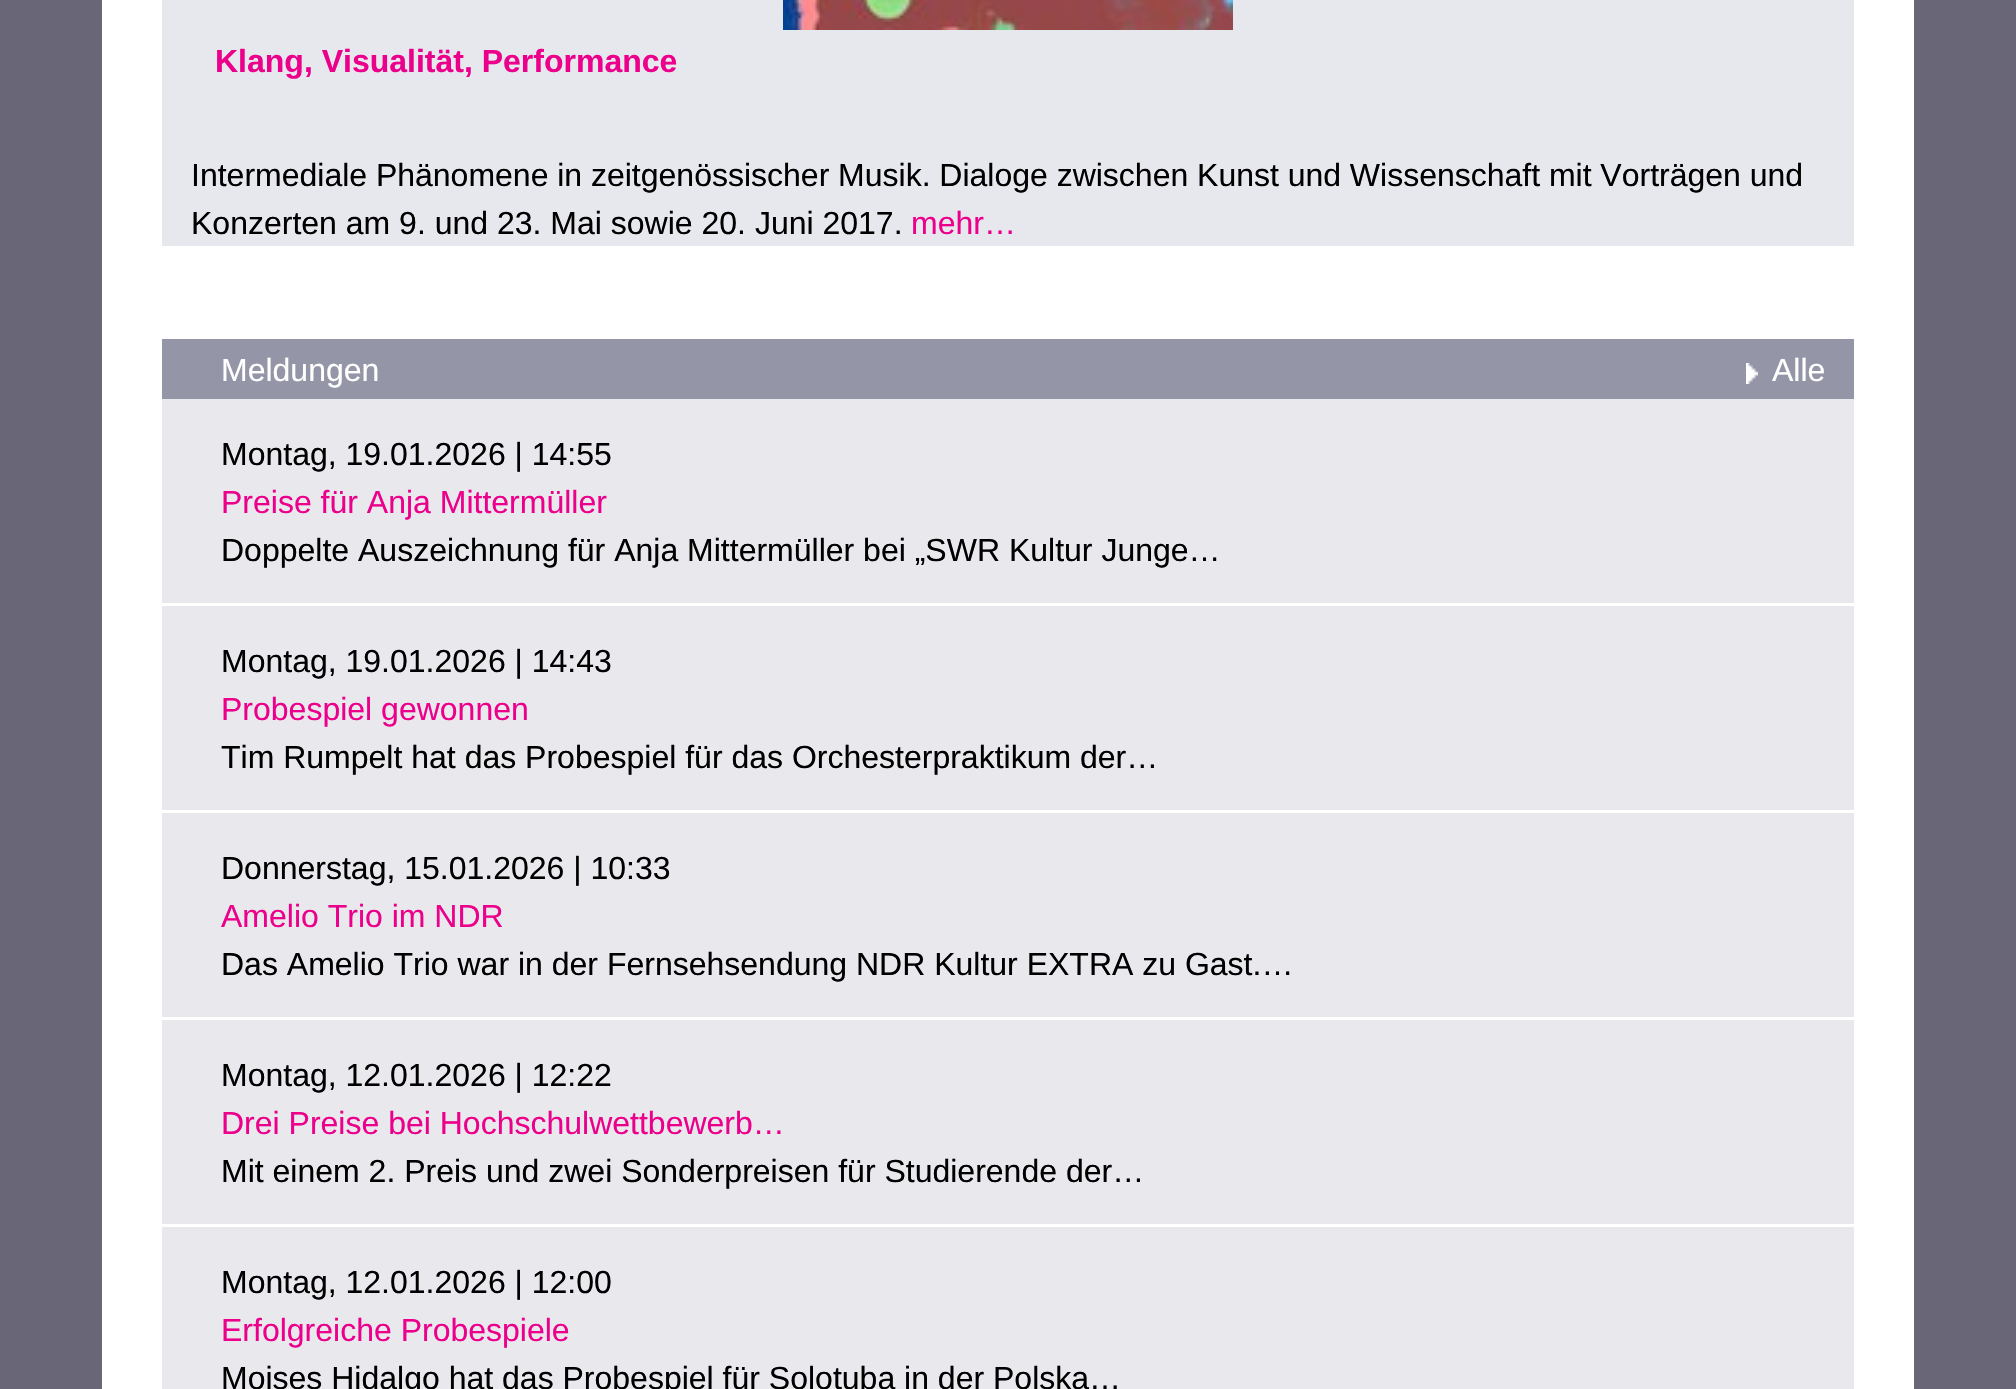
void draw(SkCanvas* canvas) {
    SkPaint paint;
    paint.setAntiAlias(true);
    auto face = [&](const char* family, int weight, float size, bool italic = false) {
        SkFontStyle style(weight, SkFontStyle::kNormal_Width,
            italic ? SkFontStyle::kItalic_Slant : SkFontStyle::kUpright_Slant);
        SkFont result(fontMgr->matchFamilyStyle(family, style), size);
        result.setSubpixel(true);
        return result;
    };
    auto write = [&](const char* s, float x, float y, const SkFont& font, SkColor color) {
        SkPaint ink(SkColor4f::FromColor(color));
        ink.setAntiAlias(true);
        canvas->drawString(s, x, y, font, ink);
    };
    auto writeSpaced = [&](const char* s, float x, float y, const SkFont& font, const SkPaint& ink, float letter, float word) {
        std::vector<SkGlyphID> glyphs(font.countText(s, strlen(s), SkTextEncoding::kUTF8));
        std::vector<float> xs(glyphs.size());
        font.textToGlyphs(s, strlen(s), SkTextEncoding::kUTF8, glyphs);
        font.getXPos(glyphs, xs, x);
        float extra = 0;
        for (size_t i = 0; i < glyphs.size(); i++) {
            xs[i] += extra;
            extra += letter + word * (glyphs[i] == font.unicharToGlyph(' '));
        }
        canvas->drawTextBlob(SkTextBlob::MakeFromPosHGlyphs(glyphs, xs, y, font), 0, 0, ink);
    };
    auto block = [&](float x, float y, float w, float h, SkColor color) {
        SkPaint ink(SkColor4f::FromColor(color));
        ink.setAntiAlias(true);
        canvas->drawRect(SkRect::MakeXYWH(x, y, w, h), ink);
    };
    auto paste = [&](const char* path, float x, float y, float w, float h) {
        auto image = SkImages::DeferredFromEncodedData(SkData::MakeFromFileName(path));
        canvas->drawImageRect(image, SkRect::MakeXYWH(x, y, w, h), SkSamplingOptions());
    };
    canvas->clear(SkColorSetRGB(104, 102, 119));
    block(102, 0, 1812, 1389, SK_ColorWHITE);
    block(162, 0, 1692, 246, SkColorSetRGB(231, 231, 238));
    paste("pic1.png", 783, 0, 450, 30);
    auto kFont1 = face("Liberation Sans", 700, 32);
    write("Klang, Visualität, Performance", 215, 72, kFont1, SkColorSetRGB(236, 0, 139));
    auto kFont2 = face("Liberation Sans", 400, 32);
    paint.setColor(SK_ColorBLACK);
    writeSpaced("Intermediale Phänomene in zeitgenössischer Musik. Dialoge zwischen Kunst und Wissenschaft mit Vorträgen und", 191, 186, kFont2, paint, 0, -0.1f);
    write("Konzerten am 9. und 23. Mai sowie 20. Juni 2017.", 191, 234, kFont2, SK_ColorBLACK);
    write("mehr…", 911, 234, kFont2, SkColorSetRGB(236, 0, 139));
    block(162, 339, 1692, 60, SkColorSetRGB(149, 149, 168));
    write("Meldungen", 221, 381, kFont2, SK_ColorWHITE);
    paste("pic2.png", 1746, 363, 12, 21);
    write("Alle", 1772, 381, kFont2, SK_ColorWHITE);
    block(162, 399, 1692, 204, SkColorSetRGB(232, 232, 237));
    write("Montag, 19.01.2026 | 14:55", 221, 465, kFont2, SK_ColorBLACK);
    write("Preise für Anja Mittermüller", 221, 513, kFont2, SkColorSetRGB(236, 0, 139));
    write("Doppelte Auszeichnung für Anja Mittermüller bei „SWR Kultur Junge…", 221, 561, kFont2, SK_ColorBLACK);
    block(162, 606, 1692, 204, SkColorSetRGB(232, 232, 237));
    write("Montag, 19.01.2026 | 14:43", 221, 672, kFont2, SK_ColorBLACK);
    write("Probespiel gewonnen", 221, 720, kFont2, SkColorSetRGB(236, 0, 139));
    write("Tim Rumpelt hat das Probespiel für das Orchesterpraktikum der…", 221, 768, kFont2, SK_ColorBLACK);
    block(162, 813, 1692, 204, SkColorSetRGB(232, 232, 237));
    write("Donnerstag, 15.01.2026 | 10:33", 221, 879, kFont2, SK_ColorBLACK);
    write("Amelio Trio im NDR", 221, 927, kFont2, SkColorSetRGB(236, 0, 139));
    write("Das Amelio Trio war in der Fernsehsendung NDR Kultur EXTRA zu Gast.…", 221, 975, kFont2, SK_ColorBLACK);
    block(162, 1020, 1692, 204, SkColorSetRGB(232, 232, 237));
    write("Montag, 12.01.2026 | 12:22", 221, 1086, kFont2, SK_ColorBLACK);
    write("Drei Preise bei Hochschulwettbewerb…", 221, 1134, kFont2, SkColorSetRGB(236, 0, 139));
    write("Mit einem 2. Preis und zwei Sonderpreisen für Studierende der…", 221, 1182, kFont2, SK_ColorBLACK);
    block(162, 1227, 1692, 162, SkColorSetRGB(232, 232, 237));
    write("Montag, 12.01.2026 | 12:00", 221, 1293, kFont2, SK_ColorBLACK);
    write("Erfolgreiche Probespiele", 221, 1341, kFont2, SkColorSetRGB(236, 0, 139));
    write("Moises Hidalgo hat das Probespiel für Solotuba in der Polska…", 221, 1389, kFont2, SK_ColorBLACK);
}
